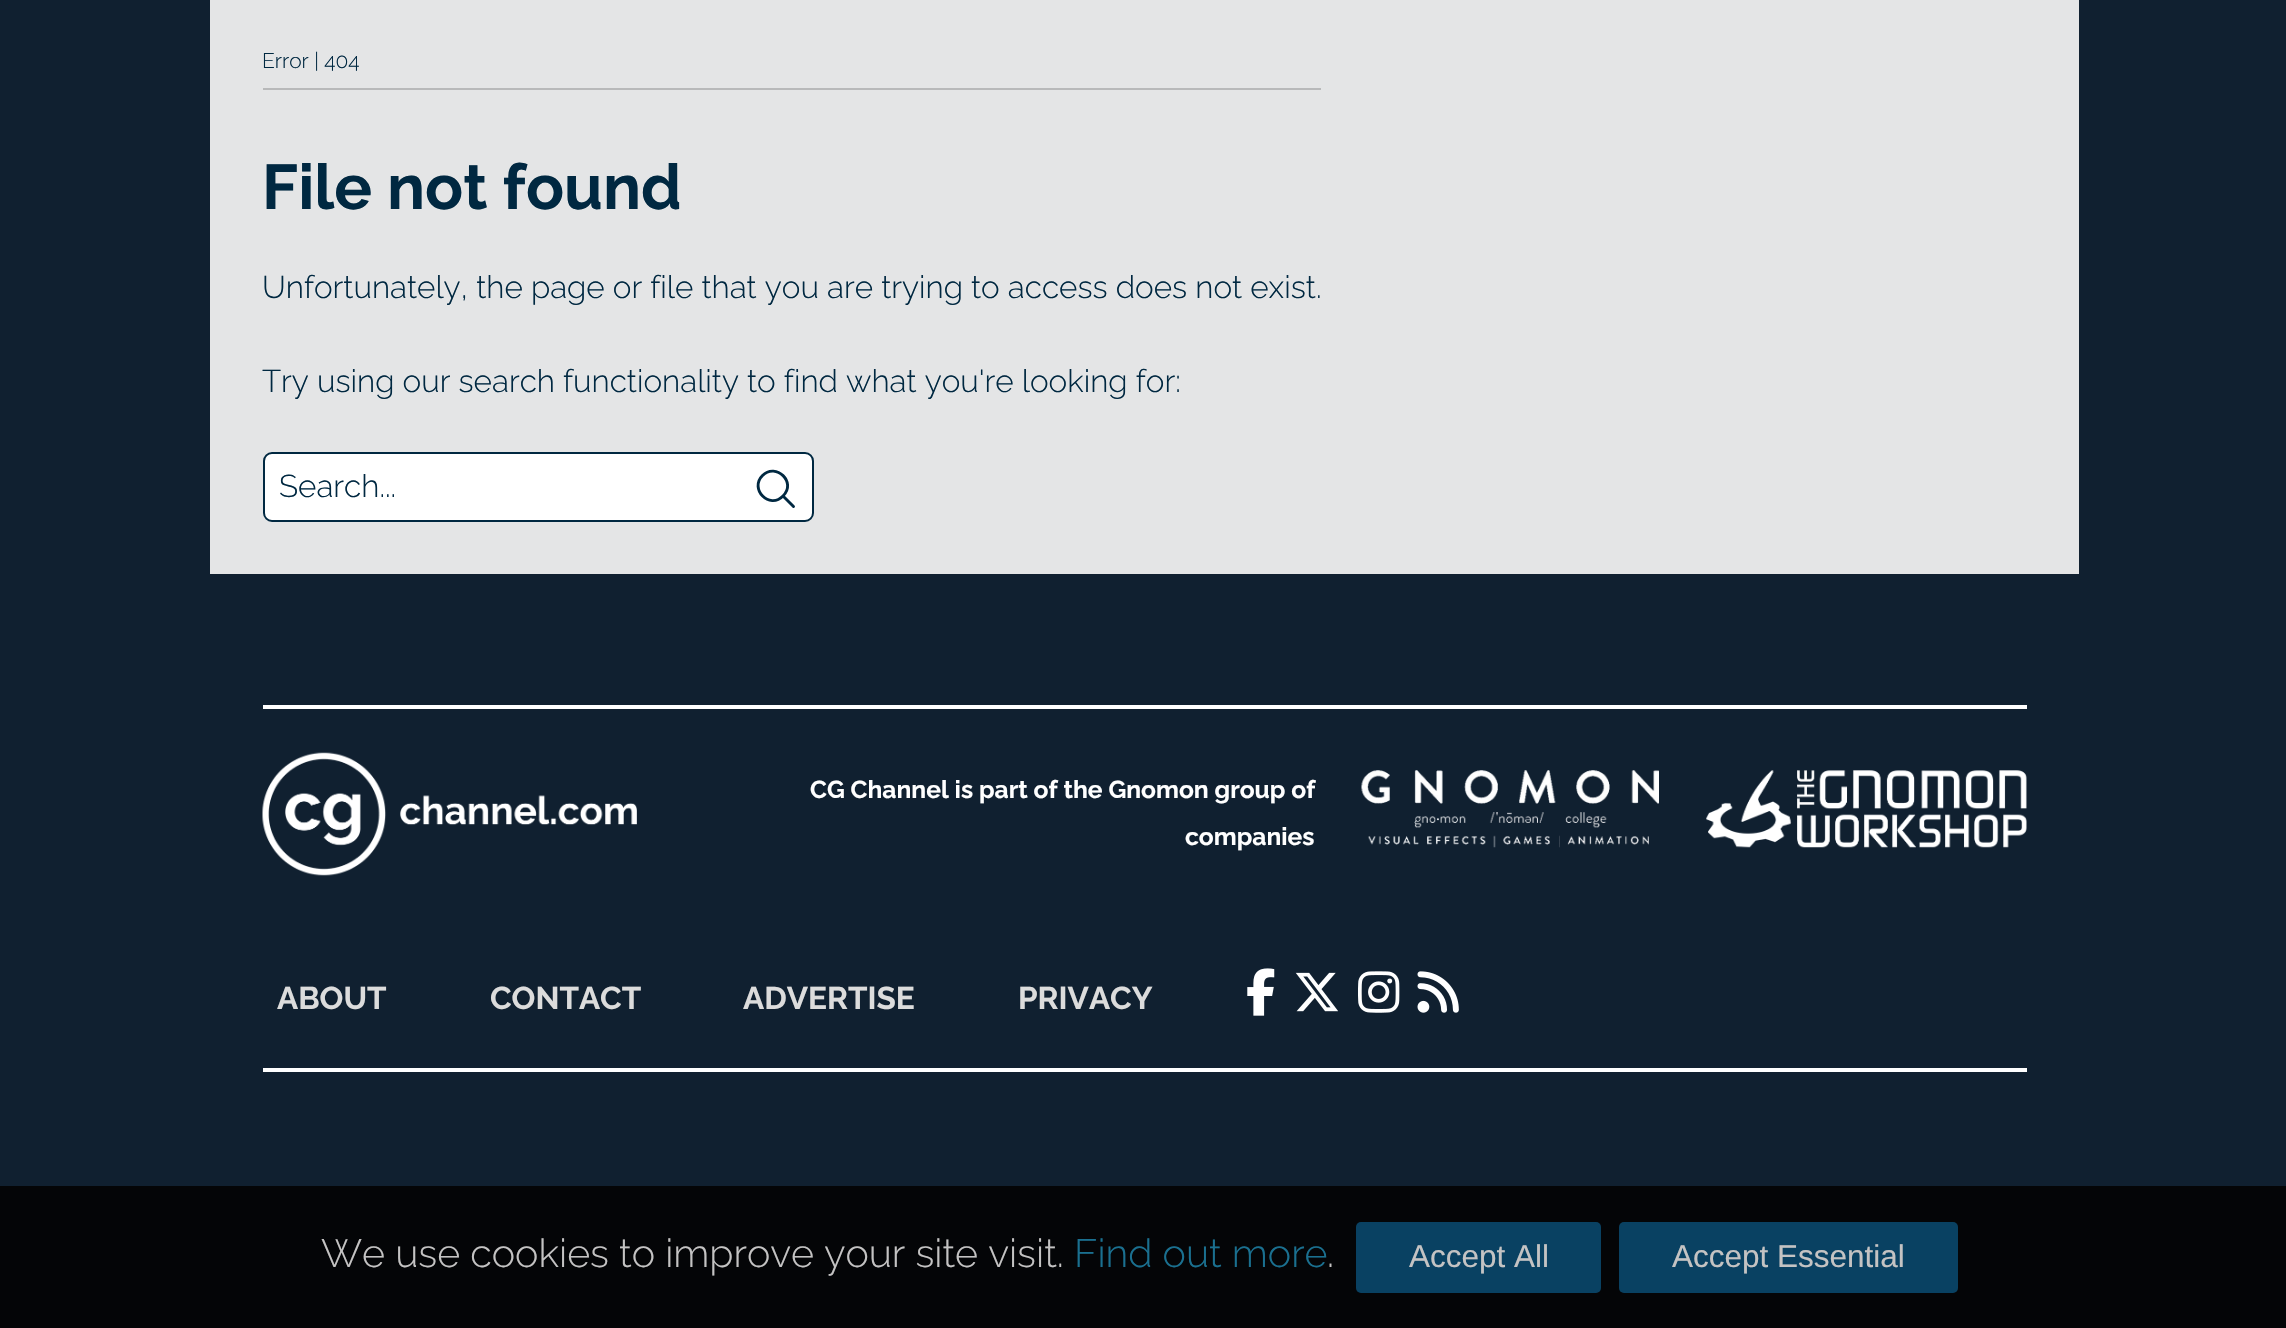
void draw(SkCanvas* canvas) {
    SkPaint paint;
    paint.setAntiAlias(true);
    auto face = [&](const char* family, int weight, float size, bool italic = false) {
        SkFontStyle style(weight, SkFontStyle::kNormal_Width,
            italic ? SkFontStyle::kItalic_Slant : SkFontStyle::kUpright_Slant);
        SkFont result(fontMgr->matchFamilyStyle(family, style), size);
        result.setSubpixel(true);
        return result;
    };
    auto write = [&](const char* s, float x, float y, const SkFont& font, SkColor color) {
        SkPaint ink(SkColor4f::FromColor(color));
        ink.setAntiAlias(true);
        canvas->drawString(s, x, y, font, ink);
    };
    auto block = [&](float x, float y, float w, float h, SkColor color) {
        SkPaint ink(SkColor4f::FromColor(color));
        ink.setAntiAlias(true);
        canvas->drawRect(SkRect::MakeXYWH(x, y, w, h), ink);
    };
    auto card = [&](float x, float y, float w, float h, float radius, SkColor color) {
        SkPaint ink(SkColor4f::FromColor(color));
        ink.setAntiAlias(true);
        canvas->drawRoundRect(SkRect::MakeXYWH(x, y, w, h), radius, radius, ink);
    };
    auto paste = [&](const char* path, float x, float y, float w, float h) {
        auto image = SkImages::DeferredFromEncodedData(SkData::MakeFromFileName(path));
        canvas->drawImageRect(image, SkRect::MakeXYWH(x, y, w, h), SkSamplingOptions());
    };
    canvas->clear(SkColorSetRGB(16, 32, 48));
    block(210, 0, 1869, 574, SkColorSetRGB(228, 229, 230));
    block(263, 88, 1058, 2, SkColorSetRGB(184, 185, 186));
    auto kFont1 = face("Raleway", 300, 21);
    write("Error | 404", 262, 68, kFont1, SkColorSetRGB(0, 40, 65));
    auto kFont2 = face("Raleway", 700, 63);
    write("File not found", 262, 209, kFont2, SkColorSetRGB(0, 40, 65));
    auto kFont3 = face("Raleway", 300, 31.5f);
    write("Unfortunately, the page or file that you are trying to access does not exist.", 262, 298, kFont3, SkColorSetRGB(0, 40, 65));
    write("Try using our search functionality to find what you're looking for:", 262, 392, kFont3, SkColorSetRGB(0, 40, 65));
    paint.setColor(SK_ColorWHITE);
    canvas->drawRoundRect(SkRect::MakeXYWH(264, 453, 549, 68), 8, 8, paint);
    paint.setStyle(SkPaint::kStroke_Style);
    paint.setStrokeWidth(2);
    paint.setColor(SkColorSetRGB(0, 40, 65));
    canvas->drawRoundRect(SkRect::MakeXYWH(264, 453, 549, 68), 8, 8, paint);
    write("Search...", 279, 497, kFont3, SkColorSetRGB(0, 40, 65));
    paint.setStrokeWidth(2.9f);
    paint.setStrokeCap(SkPaint::kRound_Cap);
    paint.setStrokeJoin(SkPaint::kRound_Join);
    canvas->drawPath(SkPathBuilder().moveTo(793.5f, 506.5f).lineTo(783, 496).moveTo(783, 496).cubicTo(797, 482.5f, 776, 462, 762.5f, 475.5f).cubicTo(749, 489, 769.5f, 510, 783, 496).close().detach(), paint);
    block(263, 705, 1764, 4, SK_ColorWHITE);
    block(263, 1068, 1764, 4, SK_ColorWHITE);
    paste("pic1.png", 262, 752, 375, 124);
    auto kFont4 = face("Raleway", 700, 24.6f);
    write("CG Channel is part of the Gnomon group of", 810, 798, kFont4, SK_ColorWHITE);
    write("companies", 1185, 845, kFont4, SK_ColorWHITE);
    paste("pic2.png", 1361, 770, 298, 78);
    paste("pic3.png", 1706, 770, 321, 78);
    auto kFont5 = face("Raleway", 700, 31.5f);
    write("ABOUT", 277, 1009, kFont5, SkColorSetRGB(220, 220, 220));
    write("CONTACT", 490, 1009, kFont5, SkColorSetRGB(220, 220, 220));
    write("ADVERTISE", 743, 1009, kFont5, SkColorSetRGB(220, 220, 220));
    write("PRIVACY", 1018, 1009, kFont5, SkColorSetRGB(220, 220, 220));
    paste("pic4.png", 1247, 968, 28, 48);
    paste("pic5.png", 1295, 972, 43, 40);
    paste("pic6.png", 1358, 971, 42, 42);
    paste("pic7.png", 1417, 971, 42, 42);
    block(0, 1186, 2286, 142, SkColorSetRGB(4, 5, 7));
    auto kFont6 = face("Raleway", 300, 39.4f);
    write("We use cookies to improve your site visit.", 321, 1267, kFont6, SkColorSetRGB(196, 195, 195));
    write("Find out more", 1074, 1267, kFont6, SkColorSetRGB(26, 112, 144));
    write(".", 1327, 1267, kFont6, SkColorSetRGB(196, 195, 195));
    card(1356, 1222, 245, 71, 5, SkColorSetRGB(9, 65, 98));
    auto kFont7 = face("Liberation Sans", 400, 31.5f);
    write("Accept All", 1409, 1267, kFont7, SkColorSetRGB(196, 195, 195));
    card(1619, 1222, 339, 71, 5, SkColorSetRGB(9, 65, 98));
    write("Accept Essential", 1672, 1267, kFont7, SkColorSetRGB(196, 195, 195));
}
